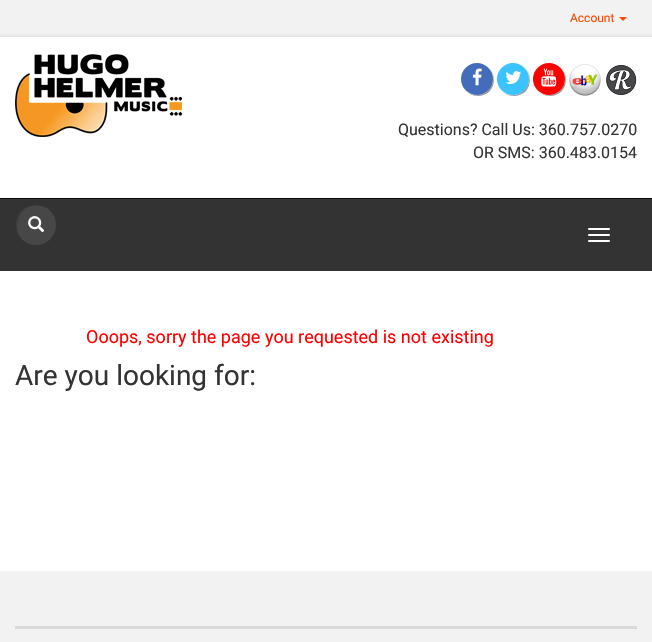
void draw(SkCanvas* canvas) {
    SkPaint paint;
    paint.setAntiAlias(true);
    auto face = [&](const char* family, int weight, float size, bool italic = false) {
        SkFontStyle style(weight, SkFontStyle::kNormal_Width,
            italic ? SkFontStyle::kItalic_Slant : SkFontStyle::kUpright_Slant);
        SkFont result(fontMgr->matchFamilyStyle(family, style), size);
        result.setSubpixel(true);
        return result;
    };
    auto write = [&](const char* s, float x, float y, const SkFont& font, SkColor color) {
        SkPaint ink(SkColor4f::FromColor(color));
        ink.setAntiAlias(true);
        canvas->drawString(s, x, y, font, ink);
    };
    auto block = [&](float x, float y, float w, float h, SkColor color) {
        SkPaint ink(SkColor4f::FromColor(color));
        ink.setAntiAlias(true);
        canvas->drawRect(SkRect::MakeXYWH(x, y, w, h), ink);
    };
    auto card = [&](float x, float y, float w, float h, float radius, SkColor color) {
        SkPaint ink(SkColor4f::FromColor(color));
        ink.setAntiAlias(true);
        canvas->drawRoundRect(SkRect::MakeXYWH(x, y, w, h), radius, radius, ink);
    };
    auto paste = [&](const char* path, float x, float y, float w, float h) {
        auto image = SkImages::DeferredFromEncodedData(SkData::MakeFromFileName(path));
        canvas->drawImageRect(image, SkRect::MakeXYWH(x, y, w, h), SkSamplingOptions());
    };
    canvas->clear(SK_ColorWHITE);
    {
        const SkColor colors[] = {SkColorSetRGB(242, 242, 242), SkColorSetRGB(230, 230, 230)};
        const float stops[] = {0.88f, 0.99f};
        const SkPoint ends[] = {{326, 0}, {326, 37}};
        paint.setShader(SkGradientShader::MakeLinear(ends, colors, stops, 2, SkTileMode::kClamp));
        paint.setAlpha(255);
    }
    canvas->drawRect(SkRect::MakeXYWH(0, 0, 652, 37), paint);
    auto kFont1 = face("Roboto", 400, 12);
    write("Account", 570, 22, kFont1, SkColorSetRGB(255, 73, 0));
    paint.setShader(nullptr);
    paint.setColor(SkColorSetRGB(255, 73, 0));
    canvas->drawPath(SkPathBuilder().moveTo(619, 17).lineTo(627, 17).lineTo(623, 21).close().detach(), paint);
    paste("pic1.png", 15, 54, 167, 83);
    paint.setColor(SkColorSetRGB(153, 153, 153));
    canvas->drawPath(SkPathBuilder().moveTo(466, 91).cubicTo(472, 97.5f, 483, 97.5f, 489.5f, 91.5f).cubicTo(495.5f, 85, 495.5f, 74, 489, 68).cubicTo(502.5f, 83, 481, 104.5f, 466, 91).close().detach(), paint);
    paint.setColor(SkColorSetRGB(67, 109, 186));
    canvas->drawCircle(477, 79, 16, paint);
    paste("pic2.png", 472, 68, 10, 18);
    paint.setColor(SkColorSetRGB(153, 153, 153));
    canvas->drawPath(SkPathBuilder().moveTo(502, 91).cubicTo(508, 97.5f, 519, 97.5f, 525.5f, 91.5f).cubicTo(531.5f, 85, 531.5f, 74, 525, 68).cubicTo(538.5f, 83, 517, 104.5f, 502, 91).close().detach(), paint);
    paint.setColor(SkColorSetRGB(58, 195, 255));
    canvas->drawCircle(513, 79, 16, paint);
    paste("pic3.png", 505, 71, 17, 13);
    paint.setColor(SkColorSetRGB(153, 153, 153));
    canvas->drawPath(SkPathBuilder().moveTo(538, 91).cubicTo(544, 97.5f, 555, 97.5f, 561.5f, 91.5f).cubicTo(567.5f, 85, 567.5f, 74, 561, 68).cubicTo(574.5f, 83, 553, 104.5f, 538, 91).close().detach(), paint);
    paint.setColor(SkColorSetRGB(255, 0, 0));
    canvas->drawCircle(549, 79, 16, paint);
    paste("pic4.png", 541, 68, 16, 19);
    paste("pic5.png", 569, 64, 32, 32);
    paste("pic6.png", 606, 65, 31, 30);
    auto kFont2 = face("Roboto", 400, 16);
    write("Questions? Call Us: 360.757.0270", 398, 135, kFont2, SkColorSetRGB(51, 51, 51));
    write("OR SMS: 360.483.0154", 473, 158, kFont2, SkColorSetRGB(51, 51, 51));
    block(0, 199, 652, 72, SkColorSetRGB(51, 51, 51));
    block(0, 198, 652, 1, SkColorSetRGB(10, 10, 10));
    paint.setColor(SkColorSetRGB(71, 71, 71));
    canvas->drawCircle(36, 225, 20, paint);
    paint.setColor(SkColorSetARGB(26, 0, 0, 0));
    canvas->drawPath(SkPathBuilder().moveTo(37, 206).cubicTo(42, 206, 45.5f, 207.5f, 49, 209.5f).cubicTo(41, 203, 29, 203.5f, 22, 211).cubicTo(14, 218.5f, 14, 231.5f, 22, 239).cubicTo(13, 228, 18, 206, 37, 206).close().detach(), paint);
    paste("pic7.png", 28, 216, 17, 17);
    card(588, 228, 22, 2, 1, SK_ColorWHITE);
    card(588, 234, 22, 2, 1, SK_ColorWHITE);
    card(588, 240, 22, 2, 1, SK_ColorWHITE);
    auto kFont3 = face("Roboto", 400, 18);
    write("Ooops, sorry the page you requested is not existing", 86, 343, kFont3, SkColorSetRGB(255, 0, 0));
    auto kFont4 = face("Roboto", 400, 28);
    write("Are you looking for:", 15, 385, kFont4, SkColorSetRGB(51, 51, 51));
    block(0, 571, 652, 71, SkColorSetRGB(242, 242, 242));
    block(15, 626, 622, 3, SkColorSetRGB(218, 218, 218));
    block(650, 640, 2, 2, SkColorSetRGB(245, 245, 245));
}
